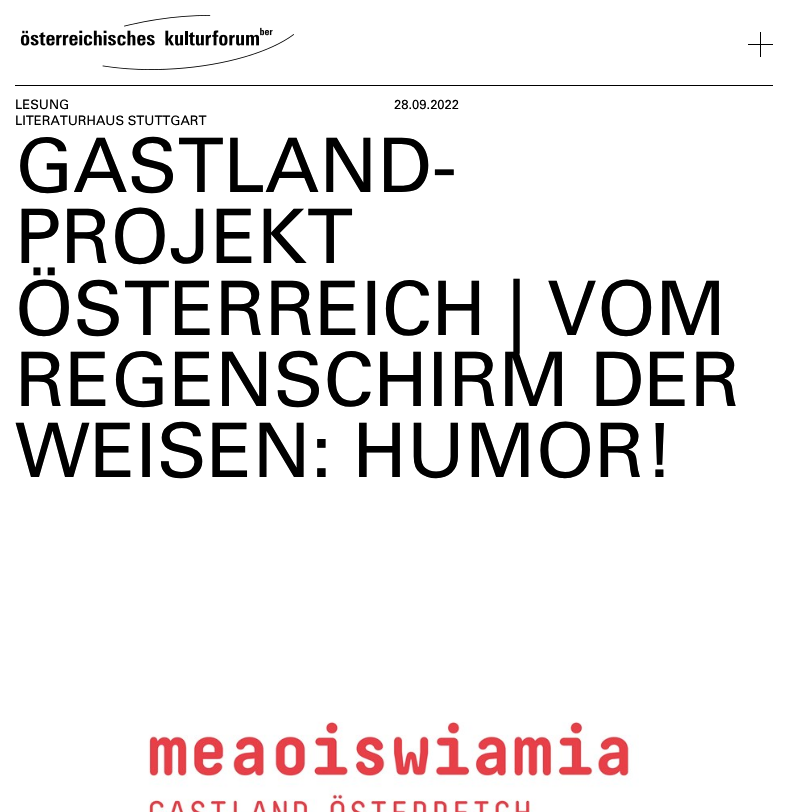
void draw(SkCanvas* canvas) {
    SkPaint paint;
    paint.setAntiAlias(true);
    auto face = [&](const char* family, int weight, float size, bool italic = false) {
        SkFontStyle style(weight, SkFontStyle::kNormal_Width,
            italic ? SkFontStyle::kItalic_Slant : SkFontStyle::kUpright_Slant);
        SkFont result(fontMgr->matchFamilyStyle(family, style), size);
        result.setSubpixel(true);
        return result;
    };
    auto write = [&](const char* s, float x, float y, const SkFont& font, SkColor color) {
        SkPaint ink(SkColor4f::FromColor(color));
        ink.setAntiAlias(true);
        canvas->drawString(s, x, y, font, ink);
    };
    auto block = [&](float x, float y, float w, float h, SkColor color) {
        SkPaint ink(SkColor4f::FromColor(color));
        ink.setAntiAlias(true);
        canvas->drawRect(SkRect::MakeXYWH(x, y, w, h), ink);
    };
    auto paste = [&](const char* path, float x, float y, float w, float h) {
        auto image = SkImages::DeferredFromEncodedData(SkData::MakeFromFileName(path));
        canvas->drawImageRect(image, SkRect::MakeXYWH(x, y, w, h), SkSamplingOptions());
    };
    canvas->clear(SK_ColorWHITE);
    paste("pic1.png", 20, 15, 274, 55);
    block(760, 32, 1, 25, SK_ColorBLACK);
    block(748, 44, 25, 1, SK_ColorBLACK);
    block(15, 85, 758, 1, SK_ColorBLACK);
    auto kFont1 = face("Univers", 400, 13);
    write("LESUNG", 15, 109, kFont1, SK_ColorBLACK);
    write("28.09.2022", 394, 109, kFont1, SK_ColorBLACK);
    write("LITERATURHAUS STUTTGART", 15, 125, kFont1, SK_ColorBLACK);
    auto kFont2 = face("Univers", 400, 75);
    write("GASTLAND-", 15, 192, kFont2, SK_ColorBLACK);
    write("PROJEKT", 15, 263, kFont2, SK_ColorBLACK);
    write("ÖSTERREICH | VOM", 15, 335, kFont2, SK_ColorBLACK);
    write("REGENSCHIRM DER", 15, 406, kFont2, SK_ColorBLACK);
    write("WEISEN: HUMOR!", 15, 477, kFont2, SK_ColorBLACK);
    paste("pic2.png", 148, 721, 491, 91);
}
